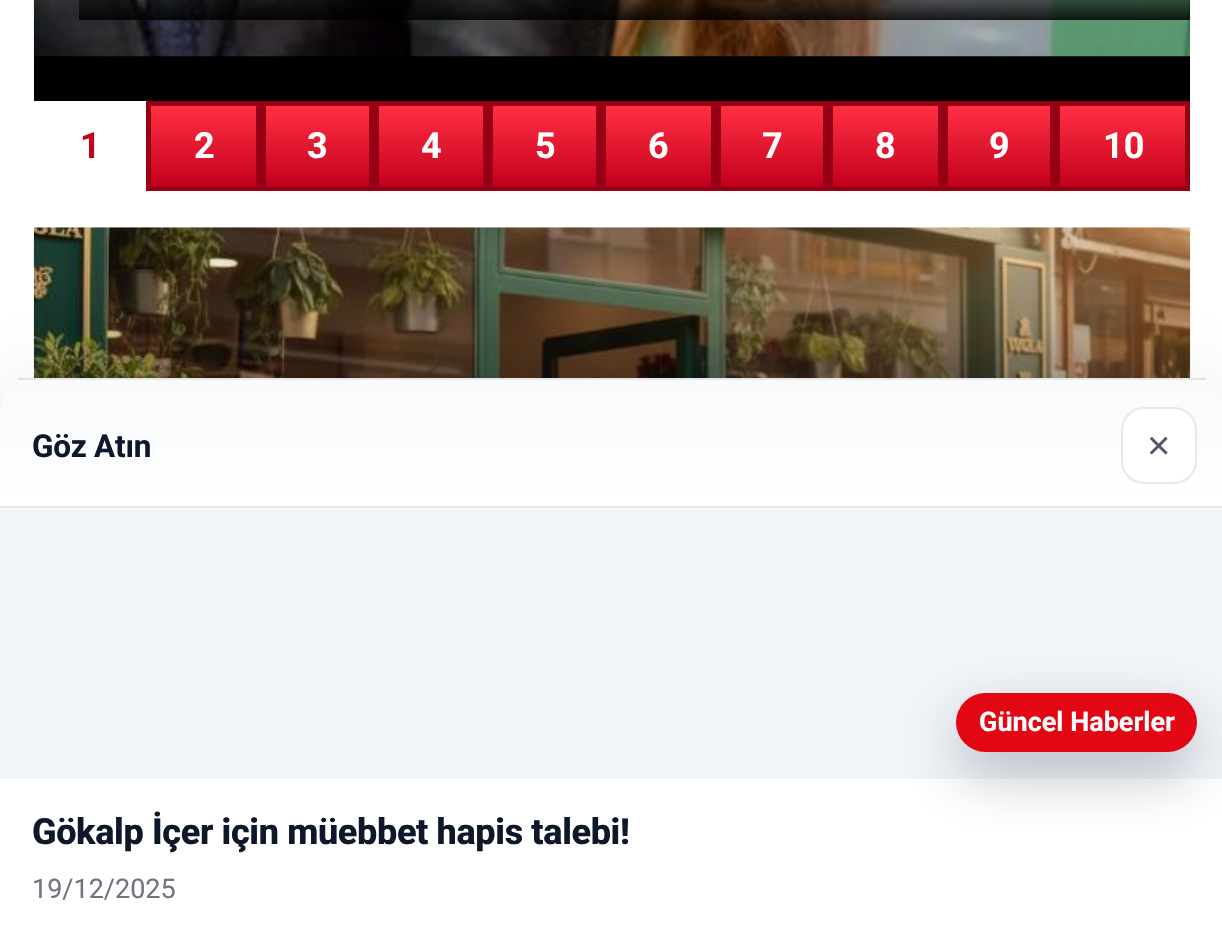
void draw(SkCanvas* canvas) {
    SkPaint paint;
    paint.setAntiAlias(true);
    auto face = [&](const char* family, int weight, float size, bool italic = false) {
        SkFontStyle style(weight, SkFontStyle::kNormal_Width,
            italic ? SkFontStyle::kItalic_Slant : SkFontStyle::kUpright_Slant);
        SkFont result(fontMgr->matchFamilyStyle(family, style), size);
        result.setSubpixel(true);
        return result;
    };
    auto write = [&](const char* s, float x, float y, const SkFont& font, SkColor color) {
        SkPaint ink(SkColor4f::FromColor(color));
        ink.setAntiAlias(true);
        canvas->drawString(s, x, y, font, ink);
    };
    auto writeSpaced = [&](const char* s, float x, float y, const SkFont& font, const SkPaint& ink, float letter, float word) {
        std::vector<SkGlyphID> glyphs(font.countText(s, strlen(s), SkTextEncoding::kUTF8));
        std::vector<float> xs(glyphs.size());
        font.textToGlyphs(s, strlen(s), SkTextEncoding::kUTF8, glyphs);
        font.getXPos(glyphs, xs, x);
        float extra = 0;
        for (size_t i = 0; i < glyphs.size(); i++) {
            xs[i] += extra;
            extra += letter + word * (glyphs[i] == font.unicharToGlyph(' '));
        }
        canvas->drawTextBlob(SkTextBlob::MakeFromPosHGlyphs(glyphs, xs, y, font), 0, 0, ink);
    };
    auto block = [&](float x, float y, float w, float h, SkColor color) {
        SkPaint ink(SkColor4f::FromColor(color));
        ink.setAntiAlias(true);
        canvas->drawRect(SkRect::MakeXYWH(x, y, w, h), ink);
    };
    auto card = [&](float x, float y, float w, float h, float radius, SkColor color) {
        SkPaint ink(SkColor4f::FromColor(color));
        ink.setAntiAlias(true);
        canvas->drawRoundRect(SkRect::MakeXYWH(x, y, w, h), radius, radius, ink);
    };
    auto paste = [&](const char* path, float x, float y, float w, float h) {
        auto image = SkImages::DeferredFromEncodedData(SkData::MakeFromFileName(path));
        canvas->drawImageRect(image, SkRect::MakeXYWH(x, y, w, h), SkSamplingOptions());
    };
    canvas->clear(SK_ColorWHITE);
    block(34, 56, 1156, 45, SK_ColorBLACK);
    paste("pic1.png", 33, 0, 1158, 57);
    paste("pic2.png", 33, 227, 1158, 152);
    {
        const SkColor colors[] = {SkColorSetARGB(217, 0, 0, 0), SkColorSetARGB(0, 0, 0, 0)};
        const float stops[] = {0, 1};
        const SkPoint ends[] = {{612, 677}, {612, 227}};
        paint.setShader(SkGradientShader::MakeLinear(ends, colors, stops, 2, SkTileMode::kClamp));
        paint.setAlpha(255);
    }
    canvas->drawRect(SkRect::MakeXYWH(34, 238, 1156, 141), paint);
    canvas->save();
    canvas->clipRect(SkRect::MakeXYWH(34, 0, 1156, 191));
    paint.setShader(nullptr);
    paint.setColor(SkColorSetARGB(89, 0, 0, 0));
    paint.setMaskFilter(SkMaskFilter::MakeBlur(kNormal_SkBlurStyle, 20));
    canvas->drawRect(SkRect::MakeXYWH(34, 88, 1156, 90), paint);
    paint.setMaskFilter(nullptr);
    canvas->restore();
    block(34, 101, 112, 90, SK_ColorWHITE);
    auto kFont1 = face("Roboto", 700, 36);
    write("1", 80, 158, kFont1, SkColorSetRGB(196, 0, 29));
    {
        const SkColor colors[] = {SkColorSetRGB(255, 48, 67), SkColorSetRGB(196, 0, 29)};
        const float stops[] = {0, 1};
        const SkPoint ends[] = {{204, 106}, {204, 187}};
        paint.setShader(SkGradientShader::MakeLinear(ends, colors, stops, 2, SkTileMode::kClamp));
        paint.setAlpha(255);
    }
    canvas->drawRect(SkRect::MakeXYWH(151, 106, 105, 80), paint);
    paint.setStyle(SkPaint::kStroke_Style);
    paint.setStrokeWidth(5);
    paint.setShader(nullptr);
    paint.setColor(SkColorSetRGB(149, 0, 20));
    canvas->drawRect(SkRect::MakeXYWH(148.5f, 103.5f, 110, 85), paint);
    write("2", 194, 158, kFont1, SK_ColorWHITE);
    paint.setStyle(SkPaint::kFill_Style);
    {
        const SkColor colors[] = {SkColorSetRGB(255, 48, 67), SkColorSetRGB(196, 0, 29)};
        const float stops[] = {0, 1};
        const SkPoint ends[] = {{317, 106}, {317, 187}};
        paint.setShader(SkGradientShader::MakeLinear(ends, colors, stops, 2, SkTileMode::kClamp));
        paint.setAlpha(255);
    }
    canvas->drawRect(SkRect::MakeXYWH(266, 106, 103, 80), paint);
    paint.setStyle(SkPaint::kStroke_Style);
    paint.setShader(nullptr);
    paint.setColor(SkColorSetRGB(149, 0, 20));
    canvas->drawRect(SkRect::MakeXYWH(263.5f, 103.5f, 108, 85), paint);
    write("3", 307, 158, kFont1, SK_ColorWHITE);
    paint.setStyle(SkPaint::kFill_Style);
    {
        const SkColor colors[] = {SkColorSetRGB(255, 48, 67), SkColorSetRGB(196, 0, 29)};
        const float stops[] = {0, 1};
        const SkPoint ends[] = {{431, 106}, {431, 187}};
        paint.setShader(SkGradientShader::MakeLinear(ends, colors, stops, 2, SkTileMode::kClamp));
        paint.setAlpha(255);
    }
    canvas->drawRect(SkRect::MakeXYWH(379, 106, 104, 80), paint);
    paint.setStyle(SkPaint::kStroke_Style);
    paint.setShader(nullptr);
    paint.setColor(SkColorSetRGB(149, 0, 20));
    canvas->drawRect(SkRect::MakeXYWH(376.5f, 103.5f, 109, 85), paint);
    write("4", 421, 158, kFont1, SK_ColorWHITE);
    paint.setStyle(SkPaint::kFill_Style);
    {
        const SkColor colors[] = {SkColorSetRGB(255, 48, 67), SkColorSetRGB(196, 0, 29)};
        const float stops[] = {0, 1};
        const SkPoint ends[] = {{545, 106}, {545, 187}};
        paint.setShader(SkGradientShader::MakeLinear(ends, colors, stops, 2, SkTileMode::kClamp));
        paint.setAlpha(255);
    }
    canvas->drawRect(SkRect::MakeXYWH(493, 106, 103, 80), paint);
    paint.setStyle(SkPaint::kStroke_Style);
    paint.setShader(nullptr);
    paint.setColor(SkColorSetRGB(149, 0, 20));
    canvas->drawRect(SkRect::MakeXYWH(490.5f, 103.5f, 108, 85), paint);
    write("5", 535, 158, kFont1, SK_ColorWHITE);
    paint.setStyle(SkPaint::kFill_Style);
    {
        const SkColor colors[] = {SkColorSetRGB(255, 48, 67), SkColorSetRGB(196, 0, 29)};
        const float stops[] = {0, 1};
        const SkPoint ends[] = {{658, 106}, {658, 187}};
        paint.setShader(SkGradientShader::MakeLinear(ends, colors, stops, 2, SkTileMode::kClamp));
        paint.setAlpha(255);
    }
    canvas->drawRect(SkRect::MakeXYWH(606, 106, 105, 80), paint);
    paint.setStyle(SkPaint::kStroke_Style);
    paint.setShader(nullptr);
    paint.setColor(SkColorSetRGB(149, 0, 20));
    canvas->drawRect(SkRect::MakeXYWH(603.5f, 103.5f, 110, 85), paint);
    write("6", 648, 158, kFont1, SK_ColorWHITE);
    paint.setStyle(SkPaint::kFill_Style);
    {
        const SkColor colors[] = {SkColorSetRGB(255, 48, 67), SkColorSetRGB(196, 0, 29)};
        const float stops[] = {0, 1};
        const SkPoint ends[] = {{772, 106}, {772, 187}};
        paint.setShader(SkGradientShader::MakeLinear(ends, colors, stops, 2, SkTileMode::kClamp));
        paint.setAlpha(255);
    }
    canvas->drawRect(SkRect::MakeXYWH(721, 106, 102, 80), paint);
    paint.setStyle(SkPaint::kStroke_Style);
    paint.setShader(nullptr);
    paint.setColor(SkColorSetRGB(149, 0, 20));
    canvas->drawRect(SkRect::MakeXYWH(718.5f, 103.5f, 107, 85), paint);
    write("7", 762, 158, kFont1, SK_ColorWHITE);
    paint.setStyle(SkPaint::kFill_Style);
    {
        const SkColor colors[] = {SkColorSetRGB(255, 48, 67), SkColorSetRGB(196, 0, 29)};
        const float stops[] = {0, 1};
        const SkPoint ends[] = {{885, 106}, {885, 187}};
        paint.setShader(SkGradientShader::MakeLinear(ends, colors, stops, 2, SkTileMode::kClamp));
        paint.setAlpha(255);
    }
    canvas->drawRect(SkRect::MakeXYWH(833, 106, 105, 80), paint);
    paint.setStyle(SkPaint::kStroke_Style);
    paint.setShader(nullptr);
    paint.setColor(SkColorSetRGB(149, 0, 20));
    canvas->drawRect(SkRect::MakeXYWH(830.5f, 103.5f, 110, 85), paint);
    write("8", 875, 158, kFont1, SK_ColorWHITE);
    paint.setStyle(SkPaint::kFill_Style);
    {
        const SkColor colors[] = {SkColorSetRGB(255, 48, 67), SkColorSetRGB(196, 0, 29)};
        const float stops[] = {0, 1};
        const SkPoint ends[] = {{999, 106}, {999, 187}};
        paint.setShader(SkGradientShader::MakeLinear(ends, colors, stops, 2, SkTileMode::kClamp));
        paint.setAlpha(255);
    }
    canvas->drawRect(SkRect::MakeXYWH(948, 106, 102, 80), paint);
    paint.setStyle(SkPaint::kStroke_Style);
    paint.setShader(nullptr);
    paint.setColor(SkColorSetRGB(149, 0, 20));
    canvas->drawRect(SkRect::MakeXYWH(945.5f, 103.5f, 107, 85), paint);
    write("9", 989, 158, kFont1, SK_ColorWHITE);
    paint.setStyle(SkPaint::kFill_Style);
    {
        const SkColor colors[] = {SkColorSetRGB(255, 48, 67), SkColorSetRGB(196, 0, 29)};
        const float stops[] = {0, 1};
        const SkPoint ends[] = {{1123, 106}, {1123, 187}};
        paint.setShader(SkGradientShader::MakeLinear(ends, colors, stops, 2, SkTileMode::kClamp));
        paint.setAlpha(255);
    }
    canvas->drawRect(SkRect::MakeXYWH(1060, 106, 125, 80), paint);
    paint.setStyle(SkPaint::kStroke_Style);
    paint.setShader(nullptr);
    paint.setColor(SkColorSetRGB(149, 0, 20));
    canvas->drawRect(SkRect::MakeXYWH(1057.5f, 103.5f, 130, 85), paint);
    write("10", 1103, 158, kFont1, SK_ColorWHITE);
    paint.setStyle(SkPaint::kFill_Style);
    paint.setColor(SkColorSetARGB(46, 15, 23, 42));
    paint.setMaskFilter(SkMaskFilter::MakeBlur(kNormal_SkBlurStyle, 62));
    canvas->drawRoundRect(SkRect::MakeXYWH(0, 419, 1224, 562), 36, 36, paint);
    paint.setMaskFilter(nullptr);
    paint.setColor(SK_ColorWHITE);
    canvas->drawPath(SkPathBuilder().moveTo(36, 378).lineTo(1188, 378).cubicTo(1208, 378, 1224, 394, 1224, 414).lineTo(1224, 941).lineTo(0, 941).lineTo(0, 414).cubicTo(0, 394, 16, 378, 36, 378).close().detach(), paint);
    block(18, 378, 1188, 2, SkColorSetARGB(26, 15, 23, 42));
    {
        const SkColor colors[] = {SkColorSetRGB(248, 250, 252), SK_ColorWHITE};
        const float stops[] = {0, 1};
        const SkPoint ends[] = {{612, 380}, {612, 506}};
        paint.setShader(SkGradientShader::MakeLinear(ends, colors, stops, 2, SkTileMode::kClamp));
        paint.setAlpha(255);
    }
    canvas->drawPath(SkPathBuilder().moveTo(36, 380).cubicTo(16, 380, 0, 395, 0, 414).lineTo(0, 506).lineTo(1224, 506).lineTo(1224, 414).cubicTo(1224, 395, 1208, 380, 1188, 380).close().detach(), paint);
    {
        const SkColor colors[] = {SkColorSetRGB(248, 250, 252), SK_ColorWHITE};
        const float stops[] = {0, 1};
        const SkPoint ends[] = {{612, 506}, {612, 632}};
        paint.setShader(SkGradientShader::MakeLinear(ends, colors, stops, 2, SkTileMode::kClamp));
        paint.setAlpha(255);
    }
    canvas->drawRect(SkRect::MakeXYWH(0, 508, 1222, 1), paint);
    block(0, 506, 1222, 2, SkColorSetRGB(229, 232, 235));
    auto kFont2 = face("Roboto", 700, 31.5f);
    paint.setShader(nullptr);
    paint.setColor(SkColorSetRGB(15, 23, 42));
    writeSpaced("Göz Atın", 32, 457, kFont2, paint, -0.25f, 0);
    paint.setColor(SK_ColorWHITE);
    canvas->drawRoundRect(SkRect::MakeXYWH(1122, 408, 74, 75), 22, 22, paint);
    paint.setStyle(SkPaint::kStroke_Style);
    paint.setStrokeWidth(2);
    paint.setColor(SkColorSetRGB(231, 232, 234));
    canvas->drawRoundRect(SkRect::MakeXYWH(1122, 408, 74, 75), 22, 22, paint);
    auto kFont3 = face("Liberation Sans", 400, 40);
    write("×", 1147, 459, kFont3, SkColorSetRGB(82, 88, 102));
    block(0, 509, 1222, 270, SkColorSetRGB(241, 245, 249));
    paint.setStyle(SkPaint::kFill_Style);
    paint.setColor(SkColorSetARGB(71, 15, 23, 42));
    paint.setMaskFilter(SkMaskFilter::MakeBlur(kNormal_SkBlurStyle, 29));
    canvas->drawRoundRect(SkRect::MakeXYWH(956, 716, 241, 58), 29, 29, paint);
    paint.setMaskFilter(nullptr);
    card(956, 693, 241, 59, 29.5f, SkColorSetRGB(227, 6, 19));
    auto kFont4 = face("Roboto", 700, 27);
    write("Güncel Haberler", 979, 731, kFont4, SK_ColorWHITE);
    auto kFont5 = face("Roboto", 800, 36);
    paint.setColor(SkColorSetRGB(15, 23, 42));
    writeSpaced("Gökalp İçer için müebbet hapis talebi!", 32, 844, kFont5, paint, -0.35f, 0);
    auto kFont6 = face("Roboto", 400, 27);
    write("19/12/2025", 32, 898, kFont6, SkColorSetRGB(111, 116, 127));
}
